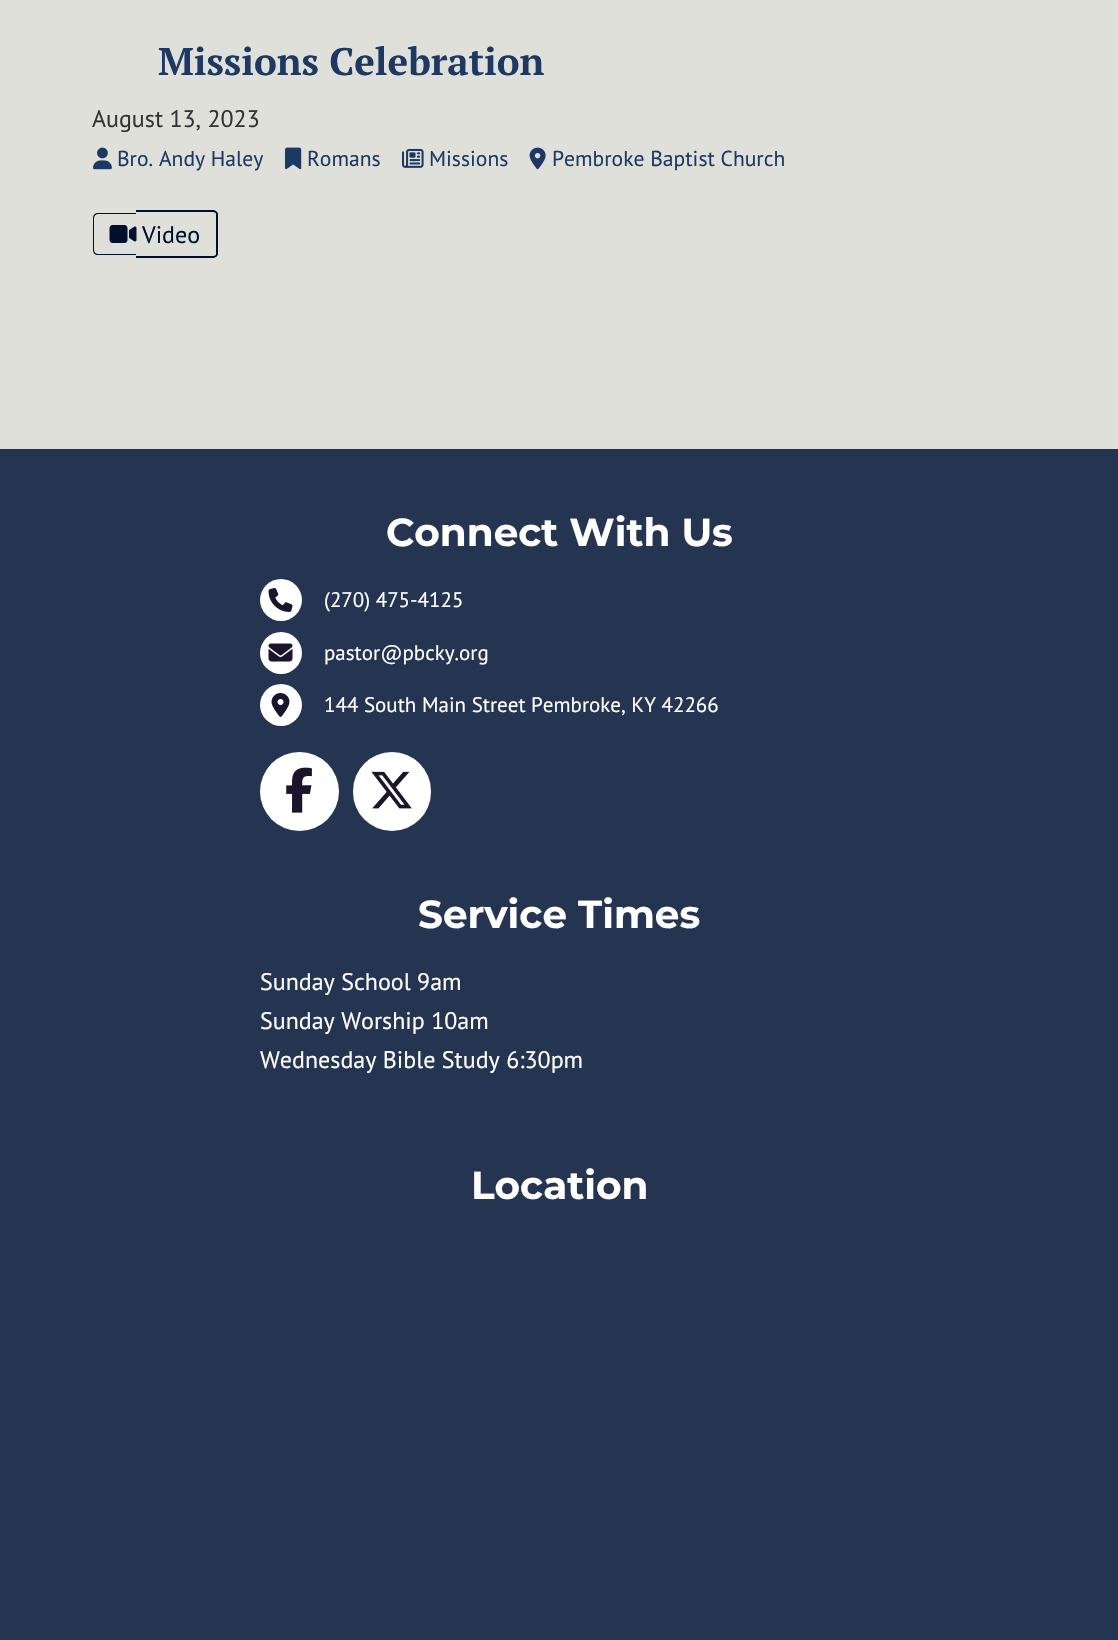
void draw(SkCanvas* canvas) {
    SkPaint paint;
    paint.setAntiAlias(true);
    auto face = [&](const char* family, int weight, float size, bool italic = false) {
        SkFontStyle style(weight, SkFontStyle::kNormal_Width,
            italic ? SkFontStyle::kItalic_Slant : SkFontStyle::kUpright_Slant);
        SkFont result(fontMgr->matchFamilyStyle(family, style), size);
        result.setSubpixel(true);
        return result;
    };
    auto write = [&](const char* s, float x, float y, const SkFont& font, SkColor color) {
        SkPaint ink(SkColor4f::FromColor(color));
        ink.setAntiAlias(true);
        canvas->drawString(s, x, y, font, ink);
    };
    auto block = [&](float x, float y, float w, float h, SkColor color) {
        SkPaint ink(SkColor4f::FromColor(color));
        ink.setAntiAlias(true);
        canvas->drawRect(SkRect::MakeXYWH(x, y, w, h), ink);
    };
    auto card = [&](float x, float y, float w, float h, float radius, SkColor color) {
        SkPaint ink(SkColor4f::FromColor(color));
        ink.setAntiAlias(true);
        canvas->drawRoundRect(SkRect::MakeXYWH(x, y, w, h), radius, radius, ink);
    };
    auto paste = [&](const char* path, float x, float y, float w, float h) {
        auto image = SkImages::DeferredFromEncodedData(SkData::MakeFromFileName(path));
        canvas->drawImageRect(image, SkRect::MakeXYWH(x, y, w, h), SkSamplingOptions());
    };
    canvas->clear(SkColorSetRGB(224, 224, 219));
    auto kFont1 = face("PT Serif", 700, 38.4f);
    write("Missions Celebration", 158, 75, kFont1, SkColorSetRGB(29, 57, 99));
    auto kFont2 = face("PT Sans", 400, 24);
    write("August 13, 2023", 92, 127, kFont2, SkColorSetRGB(51, 51, 51));
    paste("pic1.png", 93, 147, 19, 23);
    auto kFont3 = face("PT Sans", 400, 21.6f);
    write("Bro. Andy Haley", 117, 166, kFont3, SkColorSetRGB(29, 57, 99));
    paste("pic2.png", 285, 147, 17, 23);
    write("Romans", 307, 166, kFont3, SkColorSetRGB(29, 57, 99));
    paste("pic3.png", 402, 148, 22, 20);
    write("Missions", 429, 166, kFont3, SkColorSetRGB(29, 57, 99));
    paste("pic4.png", 529, 147, 17, 23);
    write("Pembroke Baptist Church", 552, 166, kFont3, SkColorSetRGB(29, 57, 99));
    paint.setColor(SkColorSetRGB(0, 15, 45));
    canvas->drawPath(SkPathBuilder(SkPathFillType::kEvenOdd).moveTo(98, 213).lineTo(136, 213).lineTo(136, 255).lineTo(98, 255).cubicTo(95, 255, 93, 253, 93, 250).lineTo(93, 218).cubicTo(93, 215, 95, 213, 98, 213).close().moveTo(98, 214).lineTo(136, 214).lineTo(136, 254).lineTo(98, 254).cubicTo(96, 254, 94, 252, 94, 250).lineTo(94, 218).cubicTo(94, 216, 96, 214, 98, 214).close().detach(), paint);
    canvas->drawPath(SkPathBuilder(SkPathFillType::kEvenOdd).moveTo(136, 210).lineTo(213, 210).cubicTo(215, 210, 218, 212, 218, 214).lineTo(218, 254).cubicTo(218, 256, 215, 258, 213, 258).lineTo(136, 258).close().moveTo(136, 212).lineTo(213, 212).cubicTo(215, 212, 216, 213, 216, 214).lineTo(216, 254).cubicTo(216, 255, 215, 256, 213, 256).lineTo(136, 256).close().detach(), paint);
    paste("pic5.png", 109, 225, 28, 18);
    write("Video", 142, 243, kFont2, SkColorSetRGB(0, 15, 45));
    block(0, 449, 1118, 1191, SkColorSetRGB(37, 53, 81));
    auto kFont4 = face("Montserrat", 100, 39);
    write("Connect With Us", 386, 546, kFont4, SK_ColorWHITE);
    paint.setColor(SK_ColorWHITE);
    canvas->drawCircle(281, 600, 21, paint);
    paste("pic6.png", 268, 588, 25, 24);
    auto kFont5 = face("PT Sans", 400, 21);
    write("(270) 475-4125", 324, 607, kFont5, SK_ColorWHITE);
    canvas->drawCircle(281, 653, 21, paint);
    paste("pic7.png", 268, 643, 25, 19);
    write("pastor@pbcky.org", 324, 660, kFont5, SK_ColorWHITE);
    canvas->drawCircle(281, 705, 21, paint);
    paste("pic8.png", 271, 693, 19, 24);
    write("144 South Main Street Pembroke, KY 42266", 324, 712, kFont5, SK_ColorWHITE);
    canvas->drawCircle(299.5f, 791.5f, 39.5f, paint);
    paste("pic9.png", 286, 767, 26, 46);
    card(353, 752, 78, 79, 39, SK_ColorWHITE);
    paste("pic10.png", 371, 771, 41, 38);
    write("Service Times", 418, 928, kFont4, SK_ColorWHITE);
    write("Sunday School 9am", 260, 990, kFont2, SK_ColorWHITE);
    write("Sunday Worship 10am", 260, 1029, kFont2, SK_ColorWHITE);
    write("Wednesday Bible Study 6:30pm", 260, 1068, kFont2, SK_ColorWHITE);
    write("Location", 471, 1199, kFont4, SK_ColorWHITE);
}
